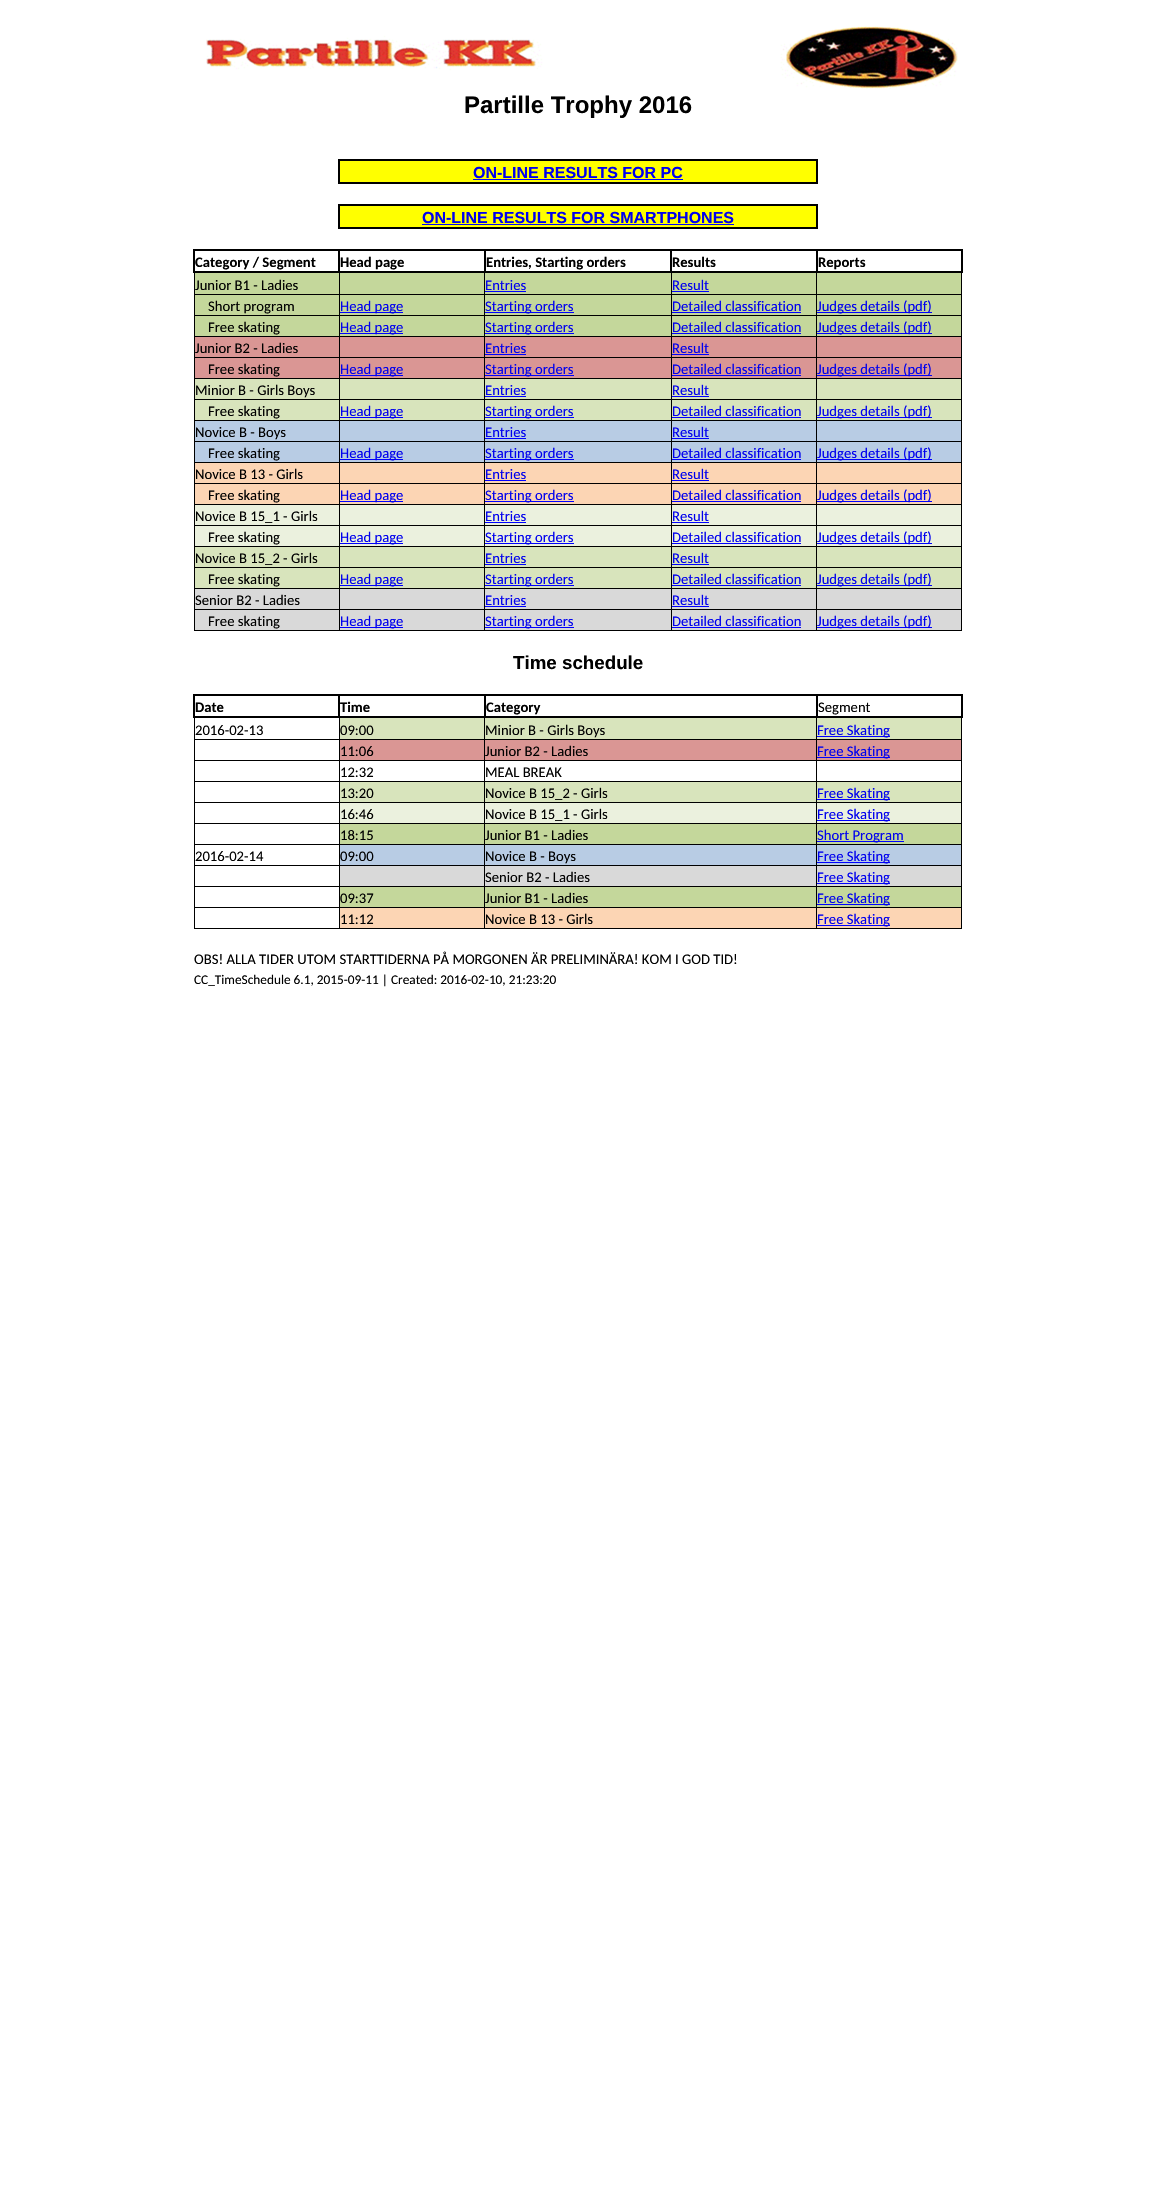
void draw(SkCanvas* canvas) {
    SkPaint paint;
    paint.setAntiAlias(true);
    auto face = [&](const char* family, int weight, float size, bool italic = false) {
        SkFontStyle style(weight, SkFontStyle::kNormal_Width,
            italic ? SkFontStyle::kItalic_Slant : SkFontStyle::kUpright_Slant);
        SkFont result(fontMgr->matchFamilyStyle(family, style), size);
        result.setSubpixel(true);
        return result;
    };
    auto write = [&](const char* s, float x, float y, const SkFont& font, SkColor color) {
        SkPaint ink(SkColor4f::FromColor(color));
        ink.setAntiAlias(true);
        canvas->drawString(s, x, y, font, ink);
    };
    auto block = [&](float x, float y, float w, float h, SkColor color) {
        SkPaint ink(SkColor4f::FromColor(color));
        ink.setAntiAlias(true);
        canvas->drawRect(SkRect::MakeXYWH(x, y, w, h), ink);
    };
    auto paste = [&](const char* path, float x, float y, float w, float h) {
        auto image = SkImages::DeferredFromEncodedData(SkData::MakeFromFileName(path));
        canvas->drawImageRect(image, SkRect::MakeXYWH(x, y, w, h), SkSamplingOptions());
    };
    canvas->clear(SK_ColorWHITE);
    paste("pic1.png", 206, 26, 752, 63);
    auto kFont1 = face("Liberation Sans", 700, 24);
    write("Partille Trophy 2016", 464, 113, kFont1, SK_ColorBLACK);
    block(340, 161, 476, 21, SkColorSetRGB(255, 255, 0));
    block(338, 159, 480, 2, SK_ColorBLACK);
    block(816, 159, 2, 25, SK_ColorBLACK);
    block(338, 182, 480, 2, SK_ColorBLACK);
    block(338, 159, 2, 25, SK_ColorBLACK);
    auto kFont2 = face("Liberation Sans", 700, 16);
    write("ON-LINE RESULTS FOR PC", 473, 178, kFont2, SkColorSetRGB(0, 0, 238));
    block(473, 179, 210, 1, SkColorSetRGB(0, 0, 255));
    block(340, 206, 476, 21, SkColorSetRGB(255, 255, 0));
    block(338, 204, 480, 2, SK_ColorBLACK);
    block(816, 204, 2, 25, SK_ColorBLACK);
    block(338, 227, 480, 2, SK_ColorBLACK);
    block(338, 204, 2, 25, SK_ColorBLACK);
    write("ON-LINE RESULTS FOR SMARTPHONES", 422, 223, kFont2, SkColorSetRGB(0, 0, 238));
    block(422, 224, 312, 1, SkColorSetRGB(0, 0, 255));
    block(193, 249, 770, 2, SK_ColorBLACK);
    block(961, 272, 1, 359, SK_ColorBLACK);
    block(961, 249, 2, 24, SK_ColorBLACK);
    block(816, 630, 146, 1, SK_ColorBLACK);
    block(816, 609, 1, 22, SK_ColorBLACK);
    block(816, 609, 146, 1, SK_ColorBLACK);
    block(816, 588, 1, 22, SK_ColorBLACK);
    block(816, 588, 146, 1, SK_ColorBLACK);
    block(816, 567, 1, 22, SK_ColorBLACK);
    block(816, 567, 146, 1, SK_ColorBLACK);
    block(816, 546, 1, 22, SK_ColorBLACK);
    block(816, 546, 146, 1, SK_ColorBLACK);
    block(816, 525, 1, 22, SK_ColorBLACK);
    block(816, 525, 146, 1, SK_ColorBLACK);
    block(816, 504, 1, 22, SK_ColorBLACK);
    block(816, 504, 146, 1, SK_ColorBLACK);
    block(816, 483, 1, 22, SK_ColorBLACK);
    block(816, 483, 146, 1, SK_ColorBLACK);
    block(816, 462, 1, 22, SK_ColorBLACK);
    block(816, 462, 146, 1, SK_ColorBLACK);
    block(816, 441, 1, 22, SK_ColorBLACK);
    block(816, 441, 146, 1, SK_ColorBLACK);
    block(816, 420, 1, 22, SK_ColorBLACK);
    block(816, 420, 146, 1, SK_ColorBLACK);
    block(816, 399, 1, 22, SK_ColorBLACK);
    block(816, 399, 146, 1, SK_ColorBLACK);
    block(816, 378, 1, 22, SK_ColorBLACK);
    block(816, 378, 146, 1, SK_ColorBLACK);
    block(816, 357, 1, 22, SK_ColorBLACK);
    block(816, 357, 146, 1, SK_ColorBLACK);
    block(816, 336, 1, 22, SK_ColorBLACK);
    block(816, 336, 146, 1, SK_ColorBLACK);
    block(816, 315, 1, 22, SK_ColorBLACK);
    block(816, 315, 146, 1, SK_ColorBLACK);
    block(816, 294, 1, 22, SK_ColorBLACK);
    block(816, 294, 146, 1, SK_ColorBLACK);
    block(816, 272, 1, 23, SK_ColorBLACK);
    block(816, 271, 147, 2, SK_ColorBLACK);
    block(816, 249, 2, 24, SK_ColorBLACK);
    block(671, 630, 146, 1, SK_ColorBLACK);
    block(671, 609, 1, 22, SK_ColorBLACK);
    block(671, 609, 146, 1, SK_ColorBLACK);
    block(671, 588, 1, 22, SK_ColorBLACK);
    block(671, 588, 146, 1, SK_ColorBLACK);
    block(671, 567, 1, 22, SK_ColorBLACK);
    block(671, 567, 146, 1, SK_ColorBLACK);
    block(671, 546, 1, 22, SK_ColorBLACK);
    block(671, 546, 146, 1, SK_ColorBLACK);
    block(671, 525, 1, 22, SK_ColorBLACK);
    block(671, 525, 146, 1, SK_ColorBLACK);
    block(671, 504, 1, 22, SK_ColorBLACK);
    block(671, 504, 146, 1, SK_ColorBLACK);
    block(671, 483, 1, 22, SK_ColorBLACK);
    block(671, 483, 146, 1, SK_ColorBLACK);
    block(671, 462, 1, 22, SK_ColorBLACK);
    block(671, 462, 146, 1, SK_ColorBLACK);
    block(671, 441, 1, 22, SK_ColorBLACK);
    block(671, 441, 146, 1, SK_ColorBLACK);
    block(671, 420, 1, 22, SK_ColorBLACK);
    block(671, 420, 146, 1, SK_ColorBLACK);
    block(671, 399, 1, 22, SK_ColorBLACK);
    block(671, 399, 146, 1, SK_ColorBLACK);
    block(671, 378, 1, 22, SK_ColorBLACK);
    block(671, 378, 146, 1, SK_ColorBLACK);
    block(671, 357, 1, 22, SK_ColorBLACK);
    block(671, 357, 146, 1, SK_ColorBLACK);
    block(671, 336, 1, 22, SK_ColorBLACK);
    block(671, 336, 146, 1, SK_ColorBLACK);
    block(671, 315, 1, 22, SK_ColorBLACK);
    block(671, 315, 146, 1, SK_ColorBLACK);
    block(671, 294, 1, 22, SK_ColorBLACK);
    block(671, 294, 146, 1, SK_ColorBLACK);
    block(671, 272, 1, 23, SK_ColorBLACK);
    block(670, 271, 148, 2, SK_ColorBLACK);
    block(670, 249, 2, 24, SK_ColorBLACK);
    block(484, 630, 188, 1, SK_ColorBLACK);
    block(484, 609, 1, 22, SK_ColorBLACK);
    block(484, 609, 188, 1, SK_ColorBLACK);
    block(484, 588, 1, 22, SK_ColorBLACK);
    block(484, 588, 188, 1, SK_ColorBLACK);
    block(484, 567, 1, 22, SK_ColorBLACK);
    block(484, 567, 188, 1, SK_ColorBLACK);
    block(484, 546, 1, 22, SK_ColorBLACK);
    block(484, 546, 188, 1, SK_ColorBLACK);
    block(484, 525, 1, 22, SK_ColorBLACK);
    block(484, 525, 188, 1, SK_ColorBLACK);
    block(484, 504, 1, 22, SK_ColorBLACK);
    block(484, 504, 188, 1, SK_ColorBLACK);
    block(484, 483, 1, 22, SK_ColorBLACK);
    block(484, 483, 188, 1, SK_ColorBLACK);
    block(484, 462, 1, 22, SK_ColorBLACK);
    block(484, 462, 188, 1, SK_ColorBLACK);
    block(484, 441, 1, 22, SK_ColorBLACK);
    block(484, 441, 188, 1, SK_ColorBLACK);
    block(484, 420, 1, 22, SK_ColorBLACK);
    block(484, 420, 188, 1, SK_ColorBLACK);
    block(484, 399, 1, 22, SK_ColorBLACK);
    block(484, 399, 188, 1, SK_ColorBLACK);
    block(484, 378, 1, 22, SK_ColorBLACK);
    block(484, 378, 188, 1, SK_ColorBLACK);
    block(484, 357, 1, 22, SK_ColorBLACK);
    block(484, 357, 188, 1, SK_ColorBLACK);
    block(484, 336, 1, 22, SK_ColorBLACK);
    block(484, 336, 188, 1, SK_ColorBLACK);
    block(484, 315, 1, 22, SK_ColorBLACK);
    block(484, 315, 188, 1, SK_ColorBLACK);
    block(484, 294, 1, 22, SK_ColorBLACK);
    block(484, 294, 188, 1, SK_ColorBLACK);
    block(484, 272, 1, 23, SK_ColorBLACK);
    block(484, 271, 188, 2, SK_ColorBLACK);
    block(484, 249, 2, 24, SK_ColorBLACK);
    block(339, 630, 146, 1, SK_ColorBLACK);
    block(339, 609, 1, 22, SK_ColorBLACK);
    block(339, 609, 146, 1, SK_ColorBLACK);
    block(339, 588, 1, 22, SK_ColorBLACK);
    block(339, 588, 146, 1, SK_ColorBLACK);
    block(339, 567, 1, 22, SK_ColorBLACK);
    block(339, 567, 146, 1, SK_ColorBLACK);
    block(339, 546, 1, 22, SK_ColorBLACK);
    block(339, 546, 146, 1, SK_ColorBLACK);
    block(339, 525, 1, 22, SK_ColorBLACK);
    block(339, 525, 146, 1, SK_ColorBLACK);
    block(339, 504, 1, 22, SK_ColorBLACK);
    block(339, 504, 146, 1, SK_ColorBLACK);
    block(339, 483, 1, 22, SK_ColorBLACK);
    block(339, 483, 146, 1, SK_ColorBLACK);
    block(339, 462, 1, 22, SK_ColorBLACK);
    block(339, 462, 146, 1, SK_ColorBLACK);
    block(339, 441, 1, 22, SK_ColorBLACK);
    block(339, 441, 146, 1, SK_ColorBLACK);
    block(339, 420, 1, 22, SK_ColorBLACK);
    block(339, 420, 146, 1, SK_ColorBLACK);
    block(339, 399, 1, 22, SK_ColorBLACK);
    block(339, 399, 146, 1, SK_ColorBLACK);
    block(339, 378, 1, 22, SK_ColorBLACK);
    block(339, 378, 146, 1, SK_ColorBLACK);
    block(339, 357, 1, 22, SK_ColorBLACK);
    block(339, 357, 146, 1, SK_ColorBLACK);
    block(339, 336, 1, 22, SK_ColorBLACK);
    block(339, 336, 146, 1, SK_ColorBLACK);
    block(339, 315, 1, 22, SK_ColorBLACK);
    block(339, 315, 146, 1, SK_ColorBLACK);
    block(339, 294, 1, 22, SK_ColorBLACK);
    block(339, 294, 146, 1, SK_ColorBLACK);
    block(339, 272, 1, 23, SK_ColorBLACK);
    block(338, 271, 148, 2, SK_ColorBLACK);
    block(338, 249, 2, 24, SK_ColorBLACK);
    block(194, 630, 146, 1, SK_ColorBLACK);
    block(194, 609, 1, 22, SK_ColorBLACK);
    block(194, 609, 146, 1, SK_ColorBLACK);
    block(194, 588, 1, 22, SK_ColorBLACK);
    block(194, 588, 146, 1, SK_ColorBLACK);
    block(194, 567, 1, 22, SK_ColorBLACK);
    block(194, 567, 146, 1, SK_ColorBLACK);
    block(194, 546, 1, 22, SK_ColorBLACK);
    block(194, 546, 146, 1, SK_ColorBLACK);
    block(194, 525, 1, 22, SK_ColorBLACK);
    block(194, 525, 146, 1, SK_ColorBLACK);
    block(194, 504, 1, 22, SK_ColorBLACK);
    block(194, 504, 146, 1, SK_ColorBLACK);
    block(194, 483, 1, 22, SK_ColorBLACK);
    block(194, 483, 146, 1, SK_ColorBLACK);
    block(194, 462, 1, 22, SK_ColorBLACK);
    block(194, 462, 146, 1, SK_ColorBLACK);
    block(194, 441, 1, 22, SK_ColorBLACK);
    block(194, 441, 146, 1, SK_ColorBLACK);
    block(194, 420, 1, 22, SK_ColorBLACK);
    block(194, 420, 146, 1, SK_ColorBLACK);
    block(194, 399, 1, 22, SK_ColorBLACK);
    block(194, 399, 146, 1, SK_ColorBLACK);
    block(194, 378, 1, 22, SK_ColorBLACK);
    block(194, 378, 146, 1, SK_ColorBLACK);
    block(194, 357, 1, 22, SK_ColorBLACK);
    block(194, 357, 146, 1, SK_ColorBLACK);
    block(194, 336, 1, 22, SK_ColorBLACK);
    block(194, 336, 146, 1, SK_ColorBLACK);
    block(194, 315, 1, 22, SK_ColorBLACK);
    block(194, 315, 146, 1, SK_ColorBLACK);
    block(194, 294, 1, 22, SK_ColorBLACK);
    block(194, 294, 146, 1, SK_ColorBLACK);
    block(194, 272, 1, 23, SK_ColorBLACK);
    block(193, 271, 147, 2, SK_ColorBLACK);
    block(193, 249, 2, 24, SK_ColorBLACK);
    auto kFont3 = face("Carlito", 700, 14.65f);
    write("Category / Segment", 195, 267, kFont3, SK_ColorBLACK);
    write("Head page", 340, 267, kFont3, SK_ColorBLACK);
    write("Entries, Starting orders", 486, 267, kFont3, SK_ColorBLACK);
    write("Results", 672, 267, kFont3, SK_ColorBLACK);
    write("Reports", 818, 267, kFont3, SK_ColorBLACK);
    block(195, 273, 144, 21, SkColorSetRGB(196, 215, 155));
    auto kFont4 = face("Carlito", 400, 14.65f);
    write("Junior B1 - Ladies", 195, 290, kFont4, SK_ColorBLACK);
    block(340, 273, 144, 21, SkColorSetRGB(196, 215, 155));
    block(485, 273, 186, 21, SkColorSetRGB(196, 215, 155));
    write("Entries", 485, 290, kFont4, SkColorSetRGB(0, 0, 238));
    block(485, 291, 41, 1, SkColorSetRGB(0, 0, 255));
    block(672, 273, 144, 21, SkColorSetRGB(196, 215, 155));
    write("Result", 672, 290, kFont4, SkColorSetRGB(0, 0, 238));
    block(672, 291, 37, 1, SkColorSetRGB(0, 0, 255));
    block(817, 273, 144, 21, SkColorSetRGB(196, 215, 155));
    block(195, 295, 144, 20, SkColorSetRGB(196, 215, 155));
    write("Short program", 208, 311, kFont4, SK_ColorBLACK);
    block(340, 295, 144, 20, SkColorSetRGB(196, 215, 155));
    block(340, 312, 63, 1, SkColorSetRGB(0, 0, 255));
    write("Head page", 340, 311, kFont4, SkColorSetRGB(0, 0, 238));
    block(485, 295, 186, 20, SkColorSetRGB(196, 215, 155));
    block(485, 312, 89, 1, SkColorSetRGB(0, 0, 255));
    write("Starting orders", 485, 311, kFont4, SkColorSetRGB(0, 0, 238));
    block(672, 295, 144, 20, SkColorSetRGB(196, 215, 155));
    write("Detailed classification", 672, 311, kFont4, SkColorSetRGB(0, 0, 238));
    block(672, 312, 129, 1, SkColorSetRGB(0, 0, 255));
    block(817, 295, 144, 20, SkColorSetRGB(196, 215, 155));
    block(817, 312, 115, 1, SkColorSetRGB(0, 0, 255));
    write("Judges details (pdf)", 817, 311, kFont4, SkColorSetRGB(0, 0, 238));
    block(195, 316, 144, 20, SkColorSetRGB(196, 215, 155));
    write("Free skating", 208, 332, kFont4, SK_ColorBLACK);
    block(340, 316, 144, 20, SkColorSetRGB(196, 215, 155));
    block(340, 333, 63, 1, SkColorSetRGB(0, 0, 255));
    write("Head page", 340, 332, kFont4, SkColorSetRGB(0, 0, 238));
    block(485, 316, 186, 20, SkColorSetRGB(196, 215, 155));
    block(485, 333, 89, 1, SkColorSetRGB(0, 0, 255));
    write("Starting orders", 485, 332, kFont4, SkColorSetRGB(0, 0, 238));
    block(672, 316, 144, 20, SkColorSetRGB(196, 215, 155));
    write("Detailed classification", 672, 332, kFont4, SkColorSetRGB(0, 0, 238));
    block(672, 333, 129, 1, SkColorSetRGB(0, 0, 255));
    block(817, 316, 144, 20, SkColorSetRGB(196, 215, 155));
    block(817, 333, 115, 1, SkColorSetRGB(0, 0, 255));
    write("Judges details (pdf)", 817, 332, kFont4, SkColorSetRGB(0, 0, 238));
    block(195, 337, 144, 20, SkColorSetRGB(218, 150, 148));
    write("Junior B2 - Ladies", 195, 353, kFont4, SK_ColorBLACK);
    block(340, 337, 144, 20, SkColorSetRGB(218, 150, 148));
    block(485, 337, 186, 20, SkColorSetRGB(218, 150, 148));
    write("Entries", 485, 353, kFont4, SkColorSetRGB(0, 0, 238));
    block(485, 354, 41, 1, SkColorSetRGB(0, 0, 255));
    block(672, 337, 144, 20, SkColorSetRGB(218, 150, 148));
    write("Result", 672, 353, kFont4, SkColorSetRGB(0, 0, 238));
    block(672, 354, 37, 1, SkColorSetRGB(0, 0, 255));
    block(817, 337, 144, 20, SkColorSetRGB(218, 150, 148));
    block(195, 358, 144, 20, SkColorSetRGB(218, 150, 148));
    write("Free skating", 208, 374, kFont4, SK_ColorBLACK);
    block(340, 358, 144, 20, SkColorSetRGB(218, 150, 148));
    block(340, 375, 63, 1, SkColorSetRGB(0, 0, 255));
    write("Head page", 340, 374, kFont4, SkColorSetRGB(0, 0, 238));
    block(485, 358, 186, 20, SkColorSetRGB(218, 150, 148));
    block(485, 375, 89, 1, SkColorSetRGB(0, 0, 255));
    write("Starting orders", 485, 374, kFont4, SkColorSetRGB(0, 0, 238));
    block(672, 358, 144, 20, SkColorSetRGB(218, 150, 148));
    write("Detailed classification", 672, 374, kFont4, SkColorSetRGB(0, 0, 238));
    block(672, 375, 129, 1, SkColorSetRGB(0, 0, 255));
    block(817, 358, 144, 20, SkColorSetRGB(218, 150, 148));
    block(817, 375, 115, 1, SkColorSetRGB(0, 0, 255));
    write("Judges details (pdf)", 817, 374, kFont4, SkColorSetRGB(0, 0, 238));
    block(195, 379, 144, 20, SkColorSetRGB(216, 228, 188));
    write("Minior B - Girls Boys", 195, 395, kFont4, SK_ColorBLACK);
    block(340, 379, 144, 20, SkColorSetRGB(216, 228, 188));
    block(485, 379, 186, 20, SkColorSetRGB(216, 228, 188));
    write("Entries", 485, 395, kFont4, SkColorSetRGB(0, 0, 238));
    block(485, 396, 41, 1, SkColorSetRGB(0, 0, 255));
    block(672, 379, 144, 20, SkColorSetRGB(216, 228, 188));
    write("Result", 672, 395, kFont4, SkColorSetRGB(0, 0, 238));
    block(672, 396, 37, 1, SkColorSetRGB(0, 0, 255));
    block(817, 379, 144, 20, SkColorSetRGB(216, 228, 188));
    block(195, 400, 144, 20, SkColorSetRGB(216, 228, 188));
    write("Free skating", 208, 416, kFont4, SK_ColorBLACK);
    block(340, 400, 144, 20, SkColorSetRGB(216, 228, 188));
    block(340, 417, 63, 1, SkColorSetRGB(0, 0, 255));
    write("Head page", 340, 416, kFont4, SkColorSetRGB(0, 0, 238));
    block(485, 400, 186, 20, SkColorSetRGB(216, 228, 188));
    block(485, 417, 89, 1, SkColorSetRGB(0, 0, 255));
    write("Starting orders", 485, 416, kFont4, SkColorSetRGB(0, 0, 238));
    block(672, 400, 144, 20, SkColorSetRGB(216, 228, 188));
    write("Detailed classification", 672, 416, kFont4, SkColorSetRGB(0, 0, 238));
    block(672, 417, 129, 1, SkColorSetRGB(0, 0, 255));
    block(817, 400, 144, 20, SkColorSetRGB(216, 228, 188));
    block(817, 417, 115, 1, SkColorSetRGB(0, 0, 255));
    write("Judges details (pdf)", 817, 416, kFont4, SkColorSetRGB(0, 0, 238));
    block(195, 421, 144, 20, SkColorSetRGB(184, 204, 228));
    write("Novice B - Boys", 195, 437, kFont4, SK_ColorBLACK);
    block(340, 421, 144, 20, SkColorSetRGB(184, 204, 228));
    block(485, 421, 186, 20, SkColorSetRGB(184, 204, 228));
    write("Entries", 485, 437, kFont4, SkColorSetRGB(0, 0, 238));
    block(485, 438, 41, 1, SkColorSetRGB(0, 0, 255));
    block(672, 421, 144, 20, SkColorSetRGB(184, 204, 228));
    write("Result", 672, 437, kFont4, SkColorSetRGB(0, 0, 238));
    block(672, 438, 37, 1, SkColorSetRGB(0, 0, 255));
    block(817, 421, 144, 20, SkColorSetRGB(184, 204, 228));
    block(195, 442, 144, 20, SkColorSetRGB(184, 204, 228));
    write("Free skating", 208, 458, kFont4, SK_ColorBLACK);
    block(340, 442, 144, 20, SkColorSetRGB(184, 204, 228));
    block(340, 459, 63, 1, SkColorSetRGB(0, 0, 255));
    write("Head page", 340, 458, kFont4, SkColorSetRGB(0, 0, 238));
    block(485, 442, 186, 20, SkColorSetRGB(184, 204, 228));
    block(485, 459, 89, 1, SkColorSetRGB(0, 0, 255));
    write("Starting orders", 485, 458, kFont4, SkColorSetRGB(0, 0, 238));
    block(672, 442, 144, 20, SkColorSetRGB(184, 204, 228));
    write("Detailed classification", 672, 458, kFont4, SkColorSetRGB(0, 0, 238));
    block(672, 459, 129, 1, SkColorSetRGB(0, 0, 255));
    block(817, 442, 144, 20, SkColorSetRGB(184, 204, 228));
    block(817, 459, 115, 1, SkColorSetRGB(0, 0, 255));
    write("Judges details (pdf)", 817, 458, kFont4, SkColorSetRGB(0, 0, 238));
    block(195, 463, 144, 20, SkColorSetRGB(252, 213, 180));
    write("Novice B 13 - Girls", 195, 479, kFont4, SK_ColorBLACK);
    block(340, 463, 144, 20, SkColorSetRGB(252, 213, 180));
    block(485, 463, 186, 20, SkColorSetRGB(252, 213, 180));
    write("Entries", 485, 479, kFont4, SkColorSetRGB(0, 0, 238));
    block(485, 480, 41, 1, SkColorSetRGB(0, 0, 255));
    block(672, 463, 144, 20, SkColorSetRGB(252, 213, 180));
    write("Result", 672, 479, kFont4, SkColorSetRGB(0, 0, 238));
    block(672, 480, 37, 1, SkColorSetRGB(0, 0, 255));
    block(817, 463, 144, 20, SkColorSetRGB(252, 213, 180));
    block(195, 484, 144, 20, SkColorSetRGB(252, 213, 180));
    write("Free skating", 208, 500, kFont4, SK_ColorBLACK);
    block(340, 484, 144, 20, SkColorSetRGB(252, 213, 180));
    block(340, 501, 63, 1, SkColorSetRGB(0, 0, 255));
    write("Head page", 340, 500, kFont4, SkColorSetRGB(0, 0, 238));
    block(485, 484, 186, 20, SkColorSetRGB(252, 213, 180));
    block(485, 501, 89, 1, SkColorSetRGB(0, 0, 255));
    write("Starting orders", 485, 500, kFont4, SkColorSetRGB(0, 0, 238));
    block(672, 484, 144, 20, SkColorSetRGB(252, 213, 180));
    write("Detailed classification", 672, 500, kFont4, SkColorSetRGB(0, 0, 238));
    block(672, 501, 129, 1, SkColorSetRGB(0, 0, 255));
    block(817, 484, 144, 20, SkColorSetRGB(252, 213, 180));
    block(817, 501, 115, 1, SkColorSetRGB(0, 0, 255));
    write("Judges details (pdf)", 817, 500, kFont4, SkColorSetRGB(0, 0, 238));
    block(195, 505, 144, 20, SkColorSetRGB(235, 241, 222));
    write("Novice B 15_1 - Girls", 195, 521, kFont4, SK_ColorBLACK);
    block(340, 505, 144, 20, SkColorSetRGB(235, 241, 222));
    block(485, 505, 186, 20, SkColorSetRGB(235, 241, 222));
    write("Entries", 485, 521, kFont4, SkColorSetRGB(0, 0, 238));
    block(485, 522, 41, 1, SkColorSetRGB(0, 0, 255));
    block(672, 505, 144, 20, SkColorSetRGB(235, 241, 222));
    write("Result", 672, 521, kFont4, SkColorSetRGB(0, 0, 238));
    block(672, 522, 37, 1, SkColorSetRGB(0, 0, 255));
    block(817, 505, 144, 20, SkColorSetRGB(235, 241, 222));
    block(195, 526, 144, 20, SkColorSetRGB(235, 241, 222));
    write("Free skating", 208, 542, kFont4, SK_ColorBLACK);
    block(340, 526, 144, 20, SkColorSetRGB(235, 241, 222));
    block(340, 543, 63, 1, SkColorSetRGB(0, 0, 255));
    write("Head page", 340, 542, kFont4, SkColorSetRGB(0, 0, 238));
    block(485, 526, 186, 20, SkColorSetRGB(235, 241, 222));
    block(485, 543, 89, 1, SkColorSetRGB(0, 0, 255));
    write("Starting orders", 485, 542, kFont4, SkColorSetRGB(0, 0, 238));
    block(672, 526, 144, 20, SkColorSetRGB(235, 241, 222));
    write("Detailed classification", 672, 542, kFont4, SkColorSetRGB(0, 0, 238));
    block(672, 543, 129, 1, SkColorSetRGB(0, 0, 255));
    block(817, 526, 144, 20, SkColorSetRGB(235, 241, 222));
    block(817, 543, 115, 1, SkColorSetRGB(0, 0, 255));
    write("Judges details (pdf)", 817, 542, kFont4, SkColorSetRGB(0, 0, 238));
    block(195, 547, 144, 20, SkColorSetRGB(216, 228, 188));
    write("Novice B 15_2 - Girls", 195, 563, kFont4, SK_ColorBLACK);
    block(340, 547, 144, 20, SkColorSetRGB(216, 228, 188));
    block(485, 547, 186, 20, SkColorSetRGB(216, 228, 188));
    write("Entries", 485, 563, kFont4, SkColorSetRGB(0, 0, 238));
    block(485, 564, 41, 1, SkColorSetRGB(0, 0, 255));
    block(672, 547, 144, 20, SkColorSetRGB(216, 228, 188));
    write("Result", 672, 563, kFont4, SkColorSetRGB(0, 0, 238));
    block(672, 564, 37, 1, SkColorSetRGB(0, 0, 255));
    block(817, 547, 144, 20, SkColorSetRGB(216, 228, 188));
    block(195, 568, 144, 20, SkColorSetRGB(216, 228, 188));
    write("Free skating", 208, 584, kFont4, SK_ColorBLACK);
    block(340, 568, 144, 20, SkColorSetRGB(216, 228, 188));
    block(340, 585, 63, 1, SkColorSetRGB(0, 0, 255));
    write("Head page", 340, 584, kFont4, SkColorSetRGB(0, 0, 238));
    block(485, 568, 186, 20, SkColorSetRGB(216, 228, 188));
    block(485, 585, 89, 1, SkColorSetRGB(0, 0, 255));
    write("Starting orders", 485, 584, kFont4, SkColorSetRGB(0, 0, 238));
    block(672, 568, 144, 20, SkColorSetRGB(216, 228, 188));
    write("Detailed classification", 672, 584, kFont4, SkColorSetRGB(0, 0, 238));
    block(672, 585, 129, 1, SkColorSetRGB(0, 0, 255));
    block(817, 568, 144, 20, SkColorSetRGB(216, 228, 188));
    block(817, 585, 115, 1, SkColorSetRGB(0, 0, 255));
    write("Judges details (pdf)", 817, 584, kFont4, SkColorSetRGB(0, 0, 238));
    block(195, 589, 144, 20, SkColorSetRGB(217, 217, 217));
    write("Senior B2 - Ladies", 195, 605, kFont4, SK_ColorBLACK);
    block(340, 589, 144, 20, SkColorSetRGB(217, 217, 217));
    block(485, 589, 186, 20, SkColorSetRGB(217, 217, 217));
    write("Entries", 485, 605, kFont4, SkColorSetRGB(0, 0, 238));
    block(485, 606, 41, 1, SkColorSetRGB(0, 0, 255));
    block(672, 589, 144, 20, SkColorSetRGB(217, 217, 217));
    write("Result", 672, 605, kFont4, SkColorSetRGB(0, 0, 238));
    block(672, 606, 37, 1, SkColorSetRGB(0, 0, 255));
    block(817, 589, 144, 20, SkColorSetRGB(217, 217, 217));
    block(195, 610, 144, 20, SkColorSetRGB(217, 217, 217));
    write("Free skating", 208, 626, kFont4, SK_ColorBLACK);
    block(340, 610, 144, 20, SkColorSetRGB(217, 217, 217));
    block(340, 627, 63, 1, SkColorSetRGB(0, 0, 255));
    write("Head page", 340, 626, kFont4, SkColorSetRGB(0, 0, 238));
    block(485, 610, 186, 20, SkColorSetRGB(217, 217, 217));
    block(485, 627, 89, 1, SkColorSetRGB(0, 0, 255));
    write("Starting orders", 485, 626, kFont4, SkColorSetRGB(0, 0, 238));
    block(672, 610, 144, 20, SkColorSetRGB(217, 217, 217));
    write("Detailed classification", 672, 626, kFont4, SkColorSetRGB(0, 0, 238));
    block(672, 627, 129, 1, SkColorSetRGB(0, 0, 255));
    block(817, 610, 144, 20, SkColorSetRGB(217, 217, 217));
    block(817, 627, 115, 1, SkColorSetRGB(0, 0, 255));
    write("Judges details (pdf)", 817, 626, kFont4, SkColorSetRGB(0, 0, 238));
    auto kFont5 = face("Liberation Sans", 700, 18.75f);
    write("Time schedule", 513, 669, kFont5, SK_ColorBLACK);
    block(193, 694, 770, 2, SK_ColorBLACK);
    block(961, 717, 1, 212, SK_ColorBLACK);
    block(961, 694, 2, 24, SK_ColorBLACK);
    block(484, 739, 333, 1, SK_ColorBLACK);
    block(484, 760, 333, 1, SK_ColorBLACK);
    block(484, 781, 333, 1, SK_ColorBLACK);
    block(484, 802, 333, 1, SK_ColorBLACK);
    block(484, 823, 333, 1, SK_ColorBLACK);
    block(484, 844, 333, 1, SK_ColorBLACK);
    block(484, 865, 333, 1, SK_ColorBLACK);
    block(484, 886, 333, 1, SK_ColorBLACK);
    block(484, 907, 333, 1, SK_ColorBLACK);
    block(816, 928, 146, 1, SK_ColorBLACK);
    block(816, 907, 1, 22, SK_ColorBLACK);
    block(816, 907, 146, 1, SK_ColorBLACK);
    block(816, 886, 1, 22, SK_ColorBLACK);
    block(816, 886, 146, 1, SK_ColorBLACK);
    block(816, 865, 1, 22, SK_ColorBLACK);
    block(816, 865, 146, 1, SK_ColorBLACK);
    block(816, 844, 1, 22, SK_ColorBLACK);
    block(816, 844, 146, 1, SK_ColorBLACK);
    block(816, 823, 1, 22, SK_ColorBLACK);
    block(816, 823, 146, 1, SK_ColorBLACK);
    block(816, 802, 1, 22, SK_ColorBLACK);
    block(816, 802, 146, 1, SK_ColorBLACK);
    block(816, 781, 1, 22, SK_ColorBLACK);
    block(816, 781, 146, 1, SK_ColorBLACK);
    block(816, 760, 1, 22, SK_ColorBLACK);
    block(816, 760, 146, 1, SK_ColorBLACK);
    block(816, 739, 1, 22, SK_ColorBLACK);
    block(816, 739, 146, 1, SK_ColorBLACK);
    block(816, 717, 1, 23, SK_ColorBLACK);
    block(816, 716, 147, 2, SK_ColorBLACK);
    block(816, 694, 2, 24, SK_ColorBLACK);
    block(484, 928, 333, 1, SK_ColorBLACK);
    block(484, 907, 1, 22, SK_ColorBLACK);
    block(484, 886, 1, 22, SK_ColorBLACK);
    block(484, 865, 1, 22, SK_ColorBLACK);
    block(484, 844, 1, 22, SK_ColorBLACK);
    block(484, 823, 1, 22, SK_ColorBLACK);
    block(484, 802, 1, 22, SK_ColorBLACK);
    block(484, 781, 1, 22, SK_ColorBLACK);
    block(484, 760, 1, 22, SK_ColorBLACK);
    block(484, 717, 1, 44, SK_ColorBLACK);
    block(484, 716, 334, 2, SK_ColorBLACK);
    block(484, 694, 2, 24, SK_ColorBLACK);
    block(339, 928, 146, 1, SK_ColorBLACK);
    block(339, 907, 1, 22, SK_ColorBLACK);
    block(339, 907, 146, 1, SK_ColorBLACK);
    block(339, 886, 1, 22, SK_ColorBLACK);
    block(339, 886, 146, 1, SK_ColorBLACK);
    block(339, 865, 1, 22, SK_ColorBLACK);
    block(339, 865, 146, 1, SK_ColorBLACK);
    block(339, 844, 1, 22, SK_ColorBLACK);
    block(339, 844, 146, 1, SK_ColorBLACK);
    block(339, 823, 1, 22, SK_ColorBLACK);
    block(339, 823, 146, 1, SK_ColorBLACK);
    block(339, 802, 1, 22, SK_ColorBLACK);
    block(339, 802, 146, 1, SK_ColorBLACK);
    block(339, 781, 1, 22, SK_ColorBLACK);
    block(339, 781, 146, 1, SK_ColorBLACK);
    block(339, 760, 1, 22, SK_ColorBLACK);
    block(339, 760, 146, 1, SK_ColorBLACK);
    block(339, 739, 1, 22, SK_ColorBLACK);
    block(339, 739, 146, 1, SK_ColorBLACK);
    block(339, 717, 1, 23, SK_ColorBLACK);
    block(338, 716, 148, 2, SK_ColorBLACK);
    block(338, 694, 2, 24, SK_ColorBLACK);
    block(194, 928, 146, 1, SK_ColorBLACK);
    block(194, 907, 1, 22, SK_ColorBLACK);
    block(194, 907, 146, 1, SK_ColorBLACK);
    block(194, 886, 1, 22, SK_ColorBLACK);
    block(194, 886, 146, 1, SK_ColorBLACK);
    block(194, 865, 1, 22, SK_ColorBLACK);
    block(194, 865, 146, 1, SK_ColorBLACK);
    block(194, 844, 1, 22, SK_ColorBLACK);
    block(194, 844, 146, 1, SK_ColorBLACK);
    block(194, 823, 1, 22, SK_ColorBLACK);
    block(194, 823, 146, 1, SK_ColorBLACK);
    block(194, 802, 1, 22, SK_ColorBLACK);
    block(194, 802, 146, 1, SK_ColorBLACK);
    block(194, 781, 1, 22, SK_ColorBLACK);
    block(194, 781, 146, 1, SK_ColorBLACK);
    block(194, 760, 1, 22, SK_ColorBLACK);
    block(194, 760, 146, 1, SK_ColorBLACK);
    block(194, 739, 1, 22, SK_ColorBLACK);
    block(194, 739, 146, 1, SK_ColorBLACK);
    block(194, 717, 1, 23, SK_ColorBLACK);
    block(193, 716, 147, 2, SK_ColorBLACK);
    block(193, 694, 2, 24, SK_ColorBLACK);
    write("Date", 195, 712, kFont3, SK_ColorBLACK);
    write("Time", 340, 712, kFont3, SK_ColorBLACK);
    write("Category", 486, 712, kFont3, SK_ColorBLACK);
    write("Segment", 818, 712, kFont4, SK_ColorBLACK);
    write("2016-02-13", 195, 735, kFont4, SK_ColorBLACK);
    block(340, 718, 144, 21, SkColorSetRGB(216, 228, 188));
    write("09:00", 340, 735, kFont4, SK_ColorBLACK);
    block(485, 718, 331, 21, SkColorSetRGB(216, 228, 188));
    write("Minior B - Girls Boys", 485, 735, kFont4, SK_ColorBLACK);
    block(817, 718, 144, 21, SkColorSetRGB(216, 228, 188));
    block(817, 736, 73, 1, SkColorSetRGB(0, 0, 255));
    write("Free Skating", 817, 735, kFont4, SkColorSetRGB(0, 0, 238));
    block(340, 740, 144, 20, SkColorSetRGB(218, 150, 148));
    write("11:06", 340, 756, kFont4, SK_ColorBLACK);
    block(485, 740, 331, 20, SkColorSetRGB(218, 150, 148));
    write("Junior B2 - Ladies", 485, 756, kFont4, SK_ColorBLACK);
    block(817, 740, 144, 20, SkColorSetRGB(218, 150, 148));
    block(817, 757, 73, 1, SkColorSetRGB(0, 0, 255));
    write("Free Skating", 817, 756, kFont4, SkColorSetRGB(0, 0, 238));
    write("12:32", 340, 777, kFont4, SK_ColorBLACK);
    write("MEAL BREAK", 485, 777, kFont4, SK_ColorBLACK);
    block(340, 782, 144, 20, SkColorSetRGB(216, 228, 188));
    write("13:20", 340, 798, kFont4, SK_ColorBLACK);
    block(485, 782, 331, 20, SkColorSetRGB(216, 228, 188));
    write("Novice B 15_2 - Girls", 485, 798, kFont4, SK_ColorBLACK);
    block(817, 782, 144, 20, SkColorSetRGB(216, 228, 188));
    block(817, 799, 73, 1, SkColorSetRGB(0, 0, 255));
    write("Free Skating", 817, 798, kFont4, SkColorSetRGB(0, 0, 238));
    block(340, 803, 144, 20, SkColorSetRGB(235, 241, 222));
    write("16:46", 340, 819, kFont4, SK_ColorBLACK);
    block(485, 803, 331, 20, SkColorSetRGB(235, 241, 222));
    write("Novice B 15_1 - Girls", 485, 819, kFont4, SK_ColorBLACK);
    block(817, 803, 144, 20, SkColorSetRGB(235, 241, 222));
    block(817, 820, 73, 1, SkColorSetRGB(0, 0, 255));
    write("Free Skating", 817, 819, kFont4, SkColorSetRGB(0, 0, 238));
    block(340, 824, 144, 20, SkColorSetRGB(196, 215, 155));
    write("18:15", 340, 840, kFont4, SK_ColorBLACK);
    block(485, 824, 331, 20, SkColorSetRGB(196, 215, 155));
    write("Junior B1 - Ladies", 485, 840, kFont4, SK_ColorBLACK);
    block(817, 824, 144, 20, SkColorSetRGB(196, 215, 155));
    block(817, 841, 87, 1, SkColorSetRGB(0, 0, 255));
    write("Short Program", 817, 840, kFont4, SkColorSetRGB(0, 0, 238));
    write("2016-02-14", 195, 861, kFont4, SK_ColorBLACK);
    block(340, 845, 144, 20, SkColorSetRGB(184, 204, 228));
    write("09:00", 340, 861, kFont4, SK_ColorBLACK);
    block(485, 845, 331, 20, SkColorSetRGB(184, 204, 228));
    write("Novice B - Boys", 485, 861, kFont4, SK_ColorBLACK);
    block(817, 845, 144, 20, SkColorSetRGB(184, 204, 228));
    block(817, 862, 73, 1, SkColorSetRGB(0, 0, 255));
    write("Free Skating", 817, 861, kFont4, SkColorSetRGB(0, 0, 238));
    block(340, 866, 144, 20, SkColorSetRGB(217, 217, 217));
    block(485, 866, 331, 20, SkColorSetRGB(217, 217, 217));
    write("Senior B2 - Ladies", 485, 882, kFont4, SK_ColorBLACK);
    block(817, 866, 144, 20, SkColorSetRGB(217, 217, 217));
    block(817, 883, 73, 1, SkColorSetRGB(0, 0, 255));
    write("Free Skating", 817, 882, kFont4, SkColorSetRGB(0, 0, 238));
    block(340, 887, 144, 20, SkColorSetRGB(196, 215, 155));
    write("09:37", 340, 903, kFont4, SK_ColorBLACK);
    block(485, 887, 331, 20, SkColorSetRGB(196, 215, 155));
    write("Junior B1 - Ladies", 485, 903, kFont4, SK_ColorBLACK);
    block(817, 887, 144, 20, SkColorSetRGB(196, 215, 155));
    block(817, 904, 73, 1, SkColorSetRGB(0, 0, 255));
    write("Free Skating", 817, 903, kFont4, SkColorSetRGB(0, 0, 238));
    block(340, 908, 144, 20, SkColorSetRGB(252, 213, 180));
    write("11:12", 340, 924, kFont4, SK_ColorBLACK);
    block(485, 908, 331, 20, SkColorSetRGB(252, 213, 180));
    write("Novice B 13 - Girls", 485, 924, kFont4, SK_ColorBLACK);
    block(817, 908, 144, 20, SkColorSetRGB(252, 213, 180));
    block(817, 925, 73, 1, SkColorSetRGB(0, 0, 255));
    write("Free Skating", 817, 924, kFont4, SkColorSetRGB(0, 0, 238));
    write("OBS! ALLA TIDER UTOM STARTTIDERNA PÅ MORGONEN ÄR PRELIMINÄRA! KOM I GOD TID!", 194, 964, kFont4, SK_ColorBLACK);
    auto kFont6 = face("Carlito", 400, 13.3f);
    write("CC_TimeSchedule 6.1, 2015-09-11 | Created: 2016-02-10, 21:23:20", 194, 984, kFont6, SK_ColorBLACK);
}
